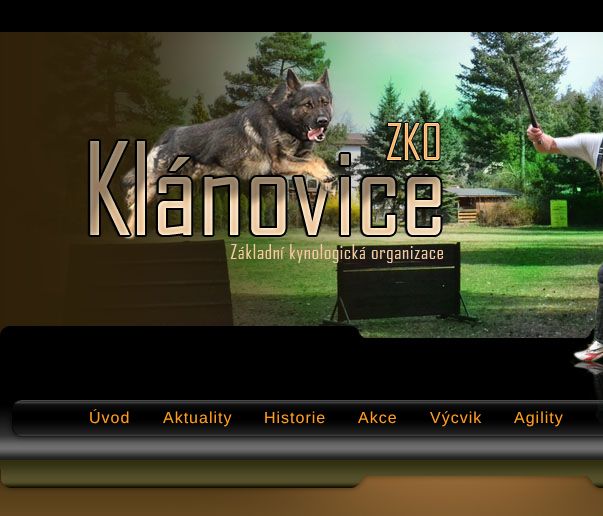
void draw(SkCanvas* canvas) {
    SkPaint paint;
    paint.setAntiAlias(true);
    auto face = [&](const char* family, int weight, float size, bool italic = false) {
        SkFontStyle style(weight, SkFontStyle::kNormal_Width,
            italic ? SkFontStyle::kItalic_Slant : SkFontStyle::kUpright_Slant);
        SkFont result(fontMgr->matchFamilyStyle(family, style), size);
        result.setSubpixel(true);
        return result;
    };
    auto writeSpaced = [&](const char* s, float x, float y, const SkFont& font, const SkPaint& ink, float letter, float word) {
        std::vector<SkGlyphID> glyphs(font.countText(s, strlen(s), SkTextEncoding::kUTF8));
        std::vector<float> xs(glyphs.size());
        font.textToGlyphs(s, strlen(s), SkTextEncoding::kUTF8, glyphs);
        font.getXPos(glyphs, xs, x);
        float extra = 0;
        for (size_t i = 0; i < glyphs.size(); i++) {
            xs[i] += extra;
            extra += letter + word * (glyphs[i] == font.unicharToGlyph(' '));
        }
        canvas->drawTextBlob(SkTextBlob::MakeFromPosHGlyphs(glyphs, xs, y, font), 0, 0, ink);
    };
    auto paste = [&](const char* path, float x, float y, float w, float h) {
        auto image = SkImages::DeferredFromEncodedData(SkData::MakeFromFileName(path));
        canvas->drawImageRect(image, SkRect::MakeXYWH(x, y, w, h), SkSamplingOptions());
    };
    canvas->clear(SK_ColorWHITE);
    paste("pic1.png", 0, 0, 603, 1);
    paste("pic2.png", 0, 1, 603, 500);
    paste("pic3.png", 82, 134, 386, 132);
    auto kFont1 = face("Liberation Sans", 400, 16);
    paint.setColor(SkColorSetRGB(255, 155, 29));
    writeSpaced("Úvod", 89, 423, kFont1, paint, 1, 0);
    writeSpaced("Aktuality", 163, 423, kFont1, paint, 1, 0);
    writeSpaced("Historie", 264, 423, kFont1, paint, 1, 0);
    writeSpaced("Akce", 358, 423, kFont1, paint, 1, 0);
    writeSpaced("Výcvik", 430, 423, kFont1, paint, 1, 0);
    writeSpaced("Agility", 514, 423, kFont1, paint, 1, 0);
    paste("pic4.png", 0, 501, 603, 15);
}
